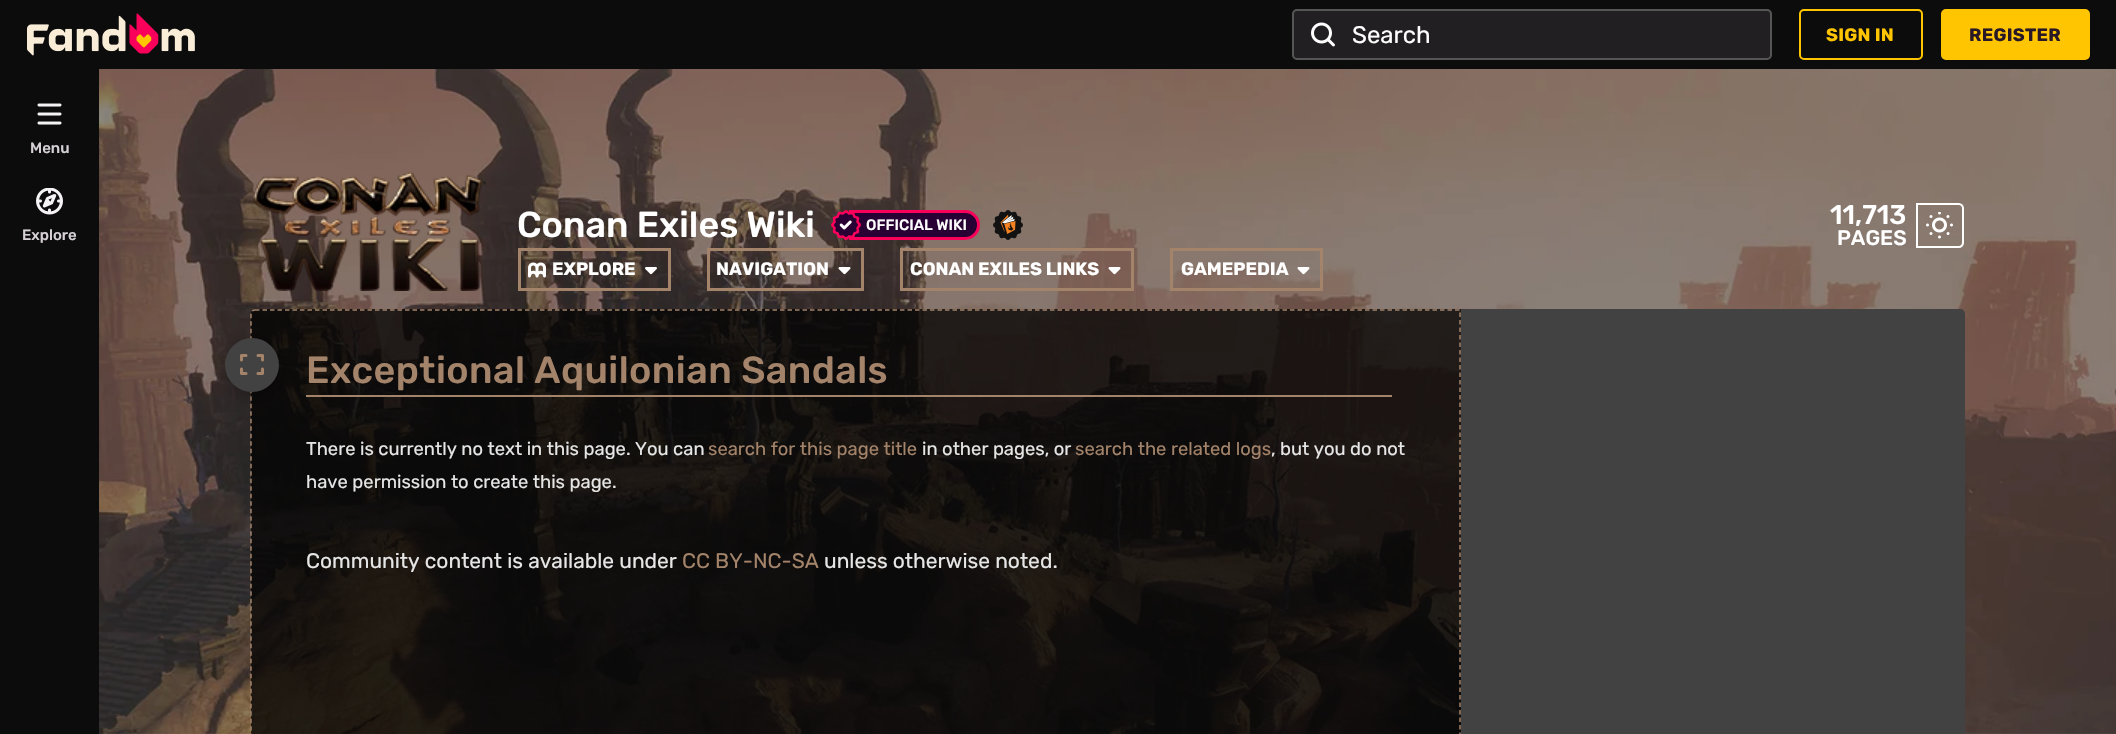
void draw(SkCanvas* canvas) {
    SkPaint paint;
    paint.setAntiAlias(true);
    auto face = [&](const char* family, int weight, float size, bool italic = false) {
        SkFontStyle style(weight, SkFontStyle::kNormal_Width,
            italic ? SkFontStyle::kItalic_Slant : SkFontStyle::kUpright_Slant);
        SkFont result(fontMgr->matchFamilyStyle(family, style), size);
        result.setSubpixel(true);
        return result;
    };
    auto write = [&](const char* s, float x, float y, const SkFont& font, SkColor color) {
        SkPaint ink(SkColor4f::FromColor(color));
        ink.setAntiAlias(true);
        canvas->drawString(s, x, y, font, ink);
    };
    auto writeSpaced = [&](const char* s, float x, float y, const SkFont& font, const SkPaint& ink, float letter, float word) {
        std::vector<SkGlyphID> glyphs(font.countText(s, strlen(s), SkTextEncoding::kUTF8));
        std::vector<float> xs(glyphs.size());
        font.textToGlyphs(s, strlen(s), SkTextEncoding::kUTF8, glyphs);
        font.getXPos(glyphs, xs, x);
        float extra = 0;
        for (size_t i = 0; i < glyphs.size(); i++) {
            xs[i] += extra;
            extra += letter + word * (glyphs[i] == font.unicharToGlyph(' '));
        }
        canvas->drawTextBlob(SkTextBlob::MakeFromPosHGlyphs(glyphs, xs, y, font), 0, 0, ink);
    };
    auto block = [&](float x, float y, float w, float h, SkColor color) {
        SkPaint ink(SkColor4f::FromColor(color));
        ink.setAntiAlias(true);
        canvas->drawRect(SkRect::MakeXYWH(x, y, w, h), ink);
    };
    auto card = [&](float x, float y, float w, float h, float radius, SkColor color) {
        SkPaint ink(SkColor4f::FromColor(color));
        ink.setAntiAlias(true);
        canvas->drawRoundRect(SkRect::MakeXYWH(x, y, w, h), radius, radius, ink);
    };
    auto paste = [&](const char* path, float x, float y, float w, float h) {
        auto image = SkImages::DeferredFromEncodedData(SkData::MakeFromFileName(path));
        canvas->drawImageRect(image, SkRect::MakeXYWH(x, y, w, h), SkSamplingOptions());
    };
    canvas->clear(SK_ColorWHITE);
    paste("pic1.png", 99, 69, 2017, 665);
    block(0, 0, 2116, 69, SkColorSetRGB(12, 12, 12));
    paste("pic2.png", 27, 13, 168, 43);
    card(1292, 9, 480, 51, 5, SkColorSetRGB(33, 31, 33));
    paint.setStyle(SkPaint::kStroke_Style);
    paint.setStrokeWidth(2);
    paint.setColor(SkColorSetARGB(64, 245, 243, 245));
    canvas->drawRoundRect(SkRect::MakeXYWH(1293, 10, 478, 49), 4, 4, paint);
    paste("pic3.png", 1311, 22, 24, 25);
    auto kFont1 = face("Rubik", 400, 24);
    write("Search", 1352, 43, kFont1, SK_ColorWHITE);
    paint.setColor(SkColorSetRGB(255, 197, 0));
    canvas->drawRoundRect(SkRect::MakeXYWH(1800, 10, 122, 49), 4, 4, paint);
    auto kFont2 = face("Rubik", 700, 18);
    paint.setStyle(SkPaint::kFill_Style);
    writeSpaced("SIGN IN", 1826, 41, kFont2, paint, 0.25f, 0);
    canvas->drawRoundRect(SkRect::MakeXYWH(1942, 10, 147, 49), 4, 4, paint);
    paint.setStyle(SkPaint::kStroke_Style);
    canvas->drawRoundRect(SkRect::MakeXYWH(1942, 10, 147, 49), 4, 4, paint);
    paint.setStyle(SkPaint::kFill_Style);
    paint.setColor(SkColorSetRGB(41, 25, 39));
    writeSpaced("REGISTER", 1969, 41, kFont2, paint, 0.25f, 0);
    block(0, 69, 99, 665, SkColorSetRGB(12, 12, 12));
    paste("pic4.png", 37, 103, 25, 22);
    auto kFont3 = face("Rubik", 500, 15);
    write("Menu", 30, 153, kFont3, SkColorSetRGB(214, 208, 213));
    paste("pic5.png", 36, 188, 27, 27);
    write("Explore", 22, 240, kFont3, SkColorSetRGB(214, 208, 213));
    paste("pic6.png", 253, 172, 233, 119);
    auto kFont4 = face("Rubik", 500, 36);
    write("Conan Exiles Wiki", 517, 237, kFont4, SK_ColorWHITE);
    paint.setColor(SkColorSetRGB(40, 0, 51));
    canvas->drawPath(SkPathBuilder().moveTo(850.5f, 211.5f).lineTo(965, 211.5f).cubicTo(972.5f, 211.5f, 978.5f, 217.5f, 978.5f, 225).cubicTo(978.5f, 232.5f, 972.5f, 238.5f, 965, 238.5f).lineTo(850.5f, 238.5f).close().detach(), paint);
    paint.setStyle(SkPaint::kStroke_Style);
    paint.setStrokeWidth(3);
    paint.setColor(SkColorSetRGB(250, 0, 90));
    canvas->drawPath(SkPathBuilder().moveTo(850.5f, 211.5f).lineTo(965, 211.5f).cubicTo(972.5f, 211.5f, 978.5f, 217.5f, 978.5f, 225).cubicTo(978.5f, 232.5f, 972.5f, 238.5f, 965, 238.5f).lineTo(850.5f, 238.5f).close().detach(), paint);
    paste("pic7.png", 831, 210, 30, 30);
    write("OFFICIAL WIKI", 866, 230, kFont3, SK_ColorWHITE);
    paste("pic8.png", 993, 210, 30, 30);
    auto kFont5 = face("Rubik", 500, 27);
    write("11,713", 1830, 224, kFont5, SK_ColorWHITE);
    auto kFont6 = face("Rubik", 500, 21);
    write("PAGES", 1837, 245, kFont6, SK_ColorWHITE);
    paint.setStrokeWidth(2);
    paint.setColor(SK_ColorWHITE);
    canvas->drawPath(SkPathBuilder().moveTo(1917, 204).lineTo(1959, 204).cubicTo(1961, 204, 1963, 206, 1963, 208).lineTo(1963, 243).cubicTo(1963, 245, 1961, 247, 1959, 247).lineTo(1917, 247).close().detach(), paint);
    paste("pic9.png", 1926, 212, 27, 27);
    paint.setStrokeWidth(3);
    paint.setColor(SkColorSetRGB(163, 131, 105));
    canvas->drawRect(SkRect::MakeXYWH(519.5f, 249.5f, 150, 40), paint);
    paste("pic10.png", 528, 262, 18, 16);
    write("EXPLORE", 552, 275, kFont2, SK_ColorWHITE);
    paste("pic11.png", 645, 267, 12, 8);
    canvas->drawRect(SkRect::MakeXYWH(708.5f, 249.5f, 154, 40), paint);
    write("NAVIGATION", 716, 275, kFont2, SK_ColorWHITE);
    paste("pic12.png", 838, 267, 13, 8);
    canvas->drawRect(SkRect::MakeXYWH(901.5f, 249.5f, 231, 40), paint);
    write("CONAN EXILES LINKS", 910, 275, kFont2, SK_ColorWHITE);
    paste("pic13.png", 1108, 267, 13, 8);
    canvas->drawRect(SkRect::MakeXYWH(1171.5f, 249.5f, 150, 40), paint);
    write("GAMEPEDIA", 1181, 275, kFont2, SK_ColorWHITE);
    paste("pic14.png", 1297, 267, 13, 8);
    paint.setStyle(SkPaint::kFill_Style);
    paint.setColor(SkColorSetARGB(191, 0, 0, 0));
    canvas->drawPath(SkPathBuilder().moveTo(256, 309).lineTo(1461, 309).lineTo(1461, 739).lineTo(256, 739).cubicTo(253, 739, 251, 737, 251, 734).lineTo(251, 314).cubicTo(251, 311, 253, 309, 256, 309).close().detach(), paint);
    paint.setStyle(SkPaint::kStroke_Style);
    paint.setStrokeWidth(1.5f);
    paint.setColor(SkColorSetRGB(163, 131, 105));
    paint.setPathEffect(SkDashPathEffect::Make({{4.5f, 3}}, 0));
    canvas->drawPath(SkPathBuilder().moveTo(255, 310).lineTo(1460, 310).lineTo(1460, 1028).lineTo(255, 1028).cubicTo(253, 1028, 251, 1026.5f, 251, 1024.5f).lineTo(251, 313.5f).cubicTo(251, 311.5f, 253, 310, 255, 310).close().detach(), paint);
    paint.setPathEffect(nullptr);
    block(306, 395, 1086, 2, SkColorSetRGB(163, 131, 105));
    paint.setStyle(SkPaint::kFill_Style);
    paint.setColor(SkColorSetARGB(77, 0, 0, 0));
    paint.setMaskFilter(SkMaskFilter::MakeBlur(kNormal_SkBlurStyle, 9));
    canvas->drawRoundRect(SkRect::MakeXYWH(225, 342, 54, 54), 27, 27, paint);
    paint.setMaskFilter(nullptr);
    paint.setColor(SkColorSetRGB(66, 66, 66));
    canvas->drawCircle(252, 365, 27, paint);
    paste("pic15.png", 240, 354, 24, 21);
    auto kFont7 = face("Rubik", 500, 37.75f);
    paint.setColor(SkColorSetRGB(163, 131, 105));
    writeSpaced("Exceptional Aquilonian Sandals", 306, 383, kFont7, paint, 0.4f, 0);
    auto kFont8 = face("Rubik", 400, 18.4f);
    write("There is currently no text in this page. You can", 306, 455, kFont8, SkColorSetRGB(230, 230, 230));
    write("search for this page title", 708, 455, kFont8, SkColorSetRGB(163, 131, 105));
    write("in other pages, or", 922, 455, kFont8, SkColorSetRGB(230, 230, 230));
    write("search the related logs", 1075, 455, kFont8, SkColorSetRGB(163, 131, 105));
    write(", but you do not", 1271, 455, kFont8, SkColorSetRGB(230, 230, 230));
    write("have permission to create this page.", 306, 488, kFont8, SkColorSetRGB(230, 230, 230));
    auto kFont9 = face("Rubik", 400, 21);
    write("Community content is available under", 306, 568, kFont9, SkColorSetRGB(230, 230, 230));
    write("CC BY-NC-SA", 682, 568, kFont9, SkColorSetRGB(163, 131, 105));
    write("unless otherwise noted.", 824, 568, kFont9, SkColorSetRGB(230, 230, 230));
    paint.setColor(SkColorSetRGB(66, 66, 66));
    canvas->drawPath(SkPathBuilder().moveTo(1461, 309).lineTo(1960, 309).cubicTo(1963, 309, 1965, 311, 1965, 314).lineTo(1965, 734).cubicTo(1965, 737, 1963, 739, 1960, 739).lineTo(1461, 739).close().detach(), paint);
}
